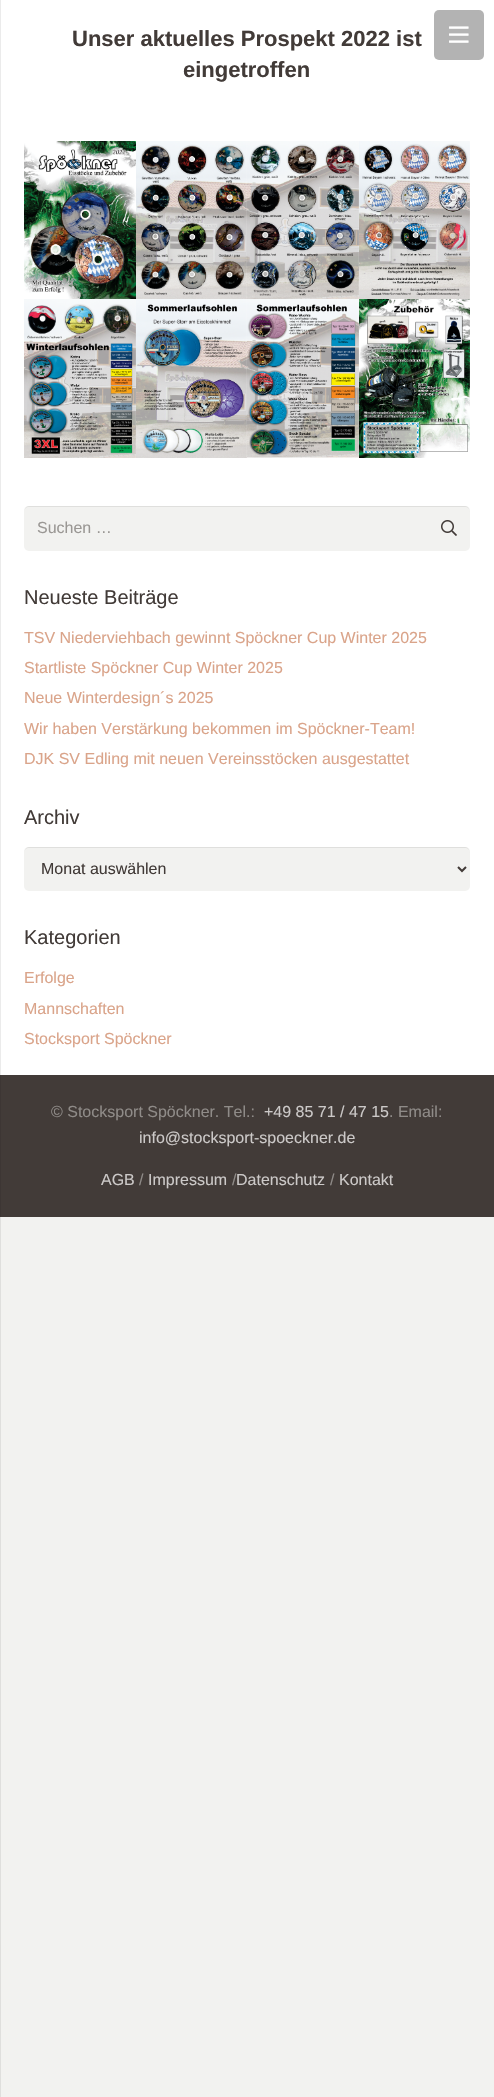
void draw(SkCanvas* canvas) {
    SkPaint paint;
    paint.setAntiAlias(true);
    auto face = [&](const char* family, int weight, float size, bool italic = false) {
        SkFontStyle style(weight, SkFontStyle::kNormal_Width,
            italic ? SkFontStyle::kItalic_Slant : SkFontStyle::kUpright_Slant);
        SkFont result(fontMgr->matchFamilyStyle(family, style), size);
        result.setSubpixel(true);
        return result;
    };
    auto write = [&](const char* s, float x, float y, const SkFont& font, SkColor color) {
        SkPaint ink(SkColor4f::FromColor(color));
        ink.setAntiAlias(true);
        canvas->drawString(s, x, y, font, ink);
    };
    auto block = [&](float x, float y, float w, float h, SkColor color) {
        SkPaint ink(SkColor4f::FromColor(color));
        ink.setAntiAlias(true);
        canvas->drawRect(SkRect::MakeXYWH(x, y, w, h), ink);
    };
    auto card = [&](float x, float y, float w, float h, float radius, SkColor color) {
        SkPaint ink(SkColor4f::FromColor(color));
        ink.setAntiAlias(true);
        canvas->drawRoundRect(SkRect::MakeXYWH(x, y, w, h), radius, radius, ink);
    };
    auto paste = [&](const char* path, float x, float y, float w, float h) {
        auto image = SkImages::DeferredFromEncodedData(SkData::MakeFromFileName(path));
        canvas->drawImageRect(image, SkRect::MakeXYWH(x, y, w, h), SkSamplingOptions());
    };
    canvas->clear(SkColorSetRGB(242, 242, 240));
    block(0, 1217, 1, 880, SkColorSetRGB(223, 223, 221));
    block(1, 0, 493, 1075, SK_ColorWHITE);
    block(0, 0, 1, 1075, SkColorSetRGB(235, 235, 235));
    auto kFont1 = face("Liberation Sans", 700, 22);
    write("Unser aktuelles Prospekt 2022 ist", 72, 46, kFont1, SkColorSetRGB(66, 59, 56));
    write("eingetroffen", 183, 77, kFont1, SkColorSetRGB(66, 59, 56));
    paste("pic1.png", 24, 141, 112, 158);
    paste("pic2.png", 136, 141, 111, 158);
    paste("pic3.png", 247, 141, 112, 158);
    paste("pic4.png", 359, 141, 111, 158);
    paste("pic5.png", 24, 299, 112, 159);
    paste("pic6.png", 136, 299, 111, 159);
    paste("pic7.png", 247, 299, 112, 159);
    paste("pic8.png", 359, 299, 111, 159);
    card(24, 506, 446, 45, 5, SkColorSetRGB(242, 242, 240));
    paint.setColor(SkColorSetARGB(20, 0, 0, 0));
    canvas->drawPath(SkPathBuilder().moveTo(29, 507).lineTo(465, 507).cubicTo(468, 507, 470, 509, 470, 512).cubicTo(470, 509, 468, 506, 465, 506).lineTo(29, 506).cubicTo(26, 506, 24, 509, 24, 512).cubicTo(24, 509, 26, 507, 29, 507).close().detach(), paint);
    auto kFont2 = face("Liberation Sans", 400, 16);
    write("Suchen …", 37, 533, kFont2, SkColorSetRGB(154, 151, 148));
    paste("pic9.png", 441, 520, 16, 16);
    auto kFont3 = face("Liberation Sans", 400, 20);
    write("Neueste Beiträge", 24, 604, kFont3, SkColorSetRGB(66, 59, 56));
    write("TSV Niederviehbach gewinnt Spöckner Cup Winter 2025", 24, 643, kFont2, SkColorSetRGB(218, 164, 138));
    write("Startliste Spöckner Cup Winter 2025", 24, 673, kFont2, SkColorSetRGB(218, 164, 138));
    write("Neue Winterdesign´s 2025", 24, 703, kFont2, SkColorSetRGB(218, 164, 138));
    write("Wir haben Verstärkung bekommen im Spöckner-Team!", 24, 734, kFont2, SkColorSetRGB(218, 164, 138));
    write("DJK SV Edling mit neuen Vereinsstöcken ausgestattet", 24, 764, kFont2, SkColorSetRGB(218, 164, 138));
    write("Archiv", 24, 824, kFont3, SkColorSetRGB(66, 59, 56));
    card(24, 847, 446, 44, 5, SkColorSetRGB(242, 242, 240));
    canvas->drawPath(SkPathBuilder().moveTo(29, 848).lineTo(465, 848).cubicTo(468, 848, 470, 850, 470, 853).cubicTo(470, 850, 468, 847, 465, 847).lineTo(29, 847).cubicTo(26, 847, 24, 850, 24, 853).cubicTo(24, 850, 26, 848, 29, 848).close().detach(), paint);
    paint.setStyle(SkPaint::kStroke_Style);
    paint.setStrokeWidth(2);
    paint.setColor(SkColorSetRGB(66, 59, 56));
    canvas->drawPath(SkPathBuilder().moveTo(458, 867).lineTo(462, 871).lineTo(466, 867).detach(), paint);
    write("Monat auswählen", 41, 874, kFont2, SkColorSetRGB(66, 59, 56));
    write("Kategorien", 24, 944, kFont3, SkColorSetRGB(66, 59, 56));
    write("Erfolge", 24, 983, kFont2, SkColorSetRGB(218, 164, 138));
    write("Mannschaften", 24, 1014, kFont2, SkColorSetRGB(218, 164, 138));
    write("Stocksport Spöckner", 24, 1044, kFont2, SkColorSetRGB(218, 164, 138));
    card(434, 10, 50, 50, 5, SkColorSetRGB(179, 179, 179));
    paste("pic10.png", 449, 26, 20, 17);
    block(1, 1075, 493, 142, SkColorSetRGB(66, 59, 56));
    block(0, 1075, 1, 142, SkColorSetRGB(61, 54, 52));
    write("© Stocksport Spöckner. Tel.:", 51, 1117, kFont2, SkColorSetRGB(143, 139, 136));
    write("+49 85 71 / 47 15", 264, 1117, kFont2, SkColorSetRGB(204, 201, 200));
    write(". Email:", 389, 1117, kFont2, SkColorSetRGB(143, 139, 136));
    write("info@stocksport-spoeckner.de", 139, 1143, kFont2, SkColorSetRGB(204, 201, 200));
    write("AGB", 101, 1185, kFont2, SkColorSetRGB(204, 201, 200));
    write("/", 139, 1185, kFont2, SkColorSetRGB(143, 139, 136));
    write("Impressum", 148, 1185, kFont2, SkColorSetRGB(204, 201, 200));
    write("/", 232, 1185, kFont2, SkColorSetRGB(143, 139, 136));
    write("Datenschutz", 236, 1185, kFont2, SkColorSetRGB(204, 201, 200));
    write("/", 330, 1185, kFont2, SkColorSetRGB(143, 139, 136));
    write("Kontakt", 339, 1185, kFont2, SkColorSetRGB(204, 201, 200));
}
